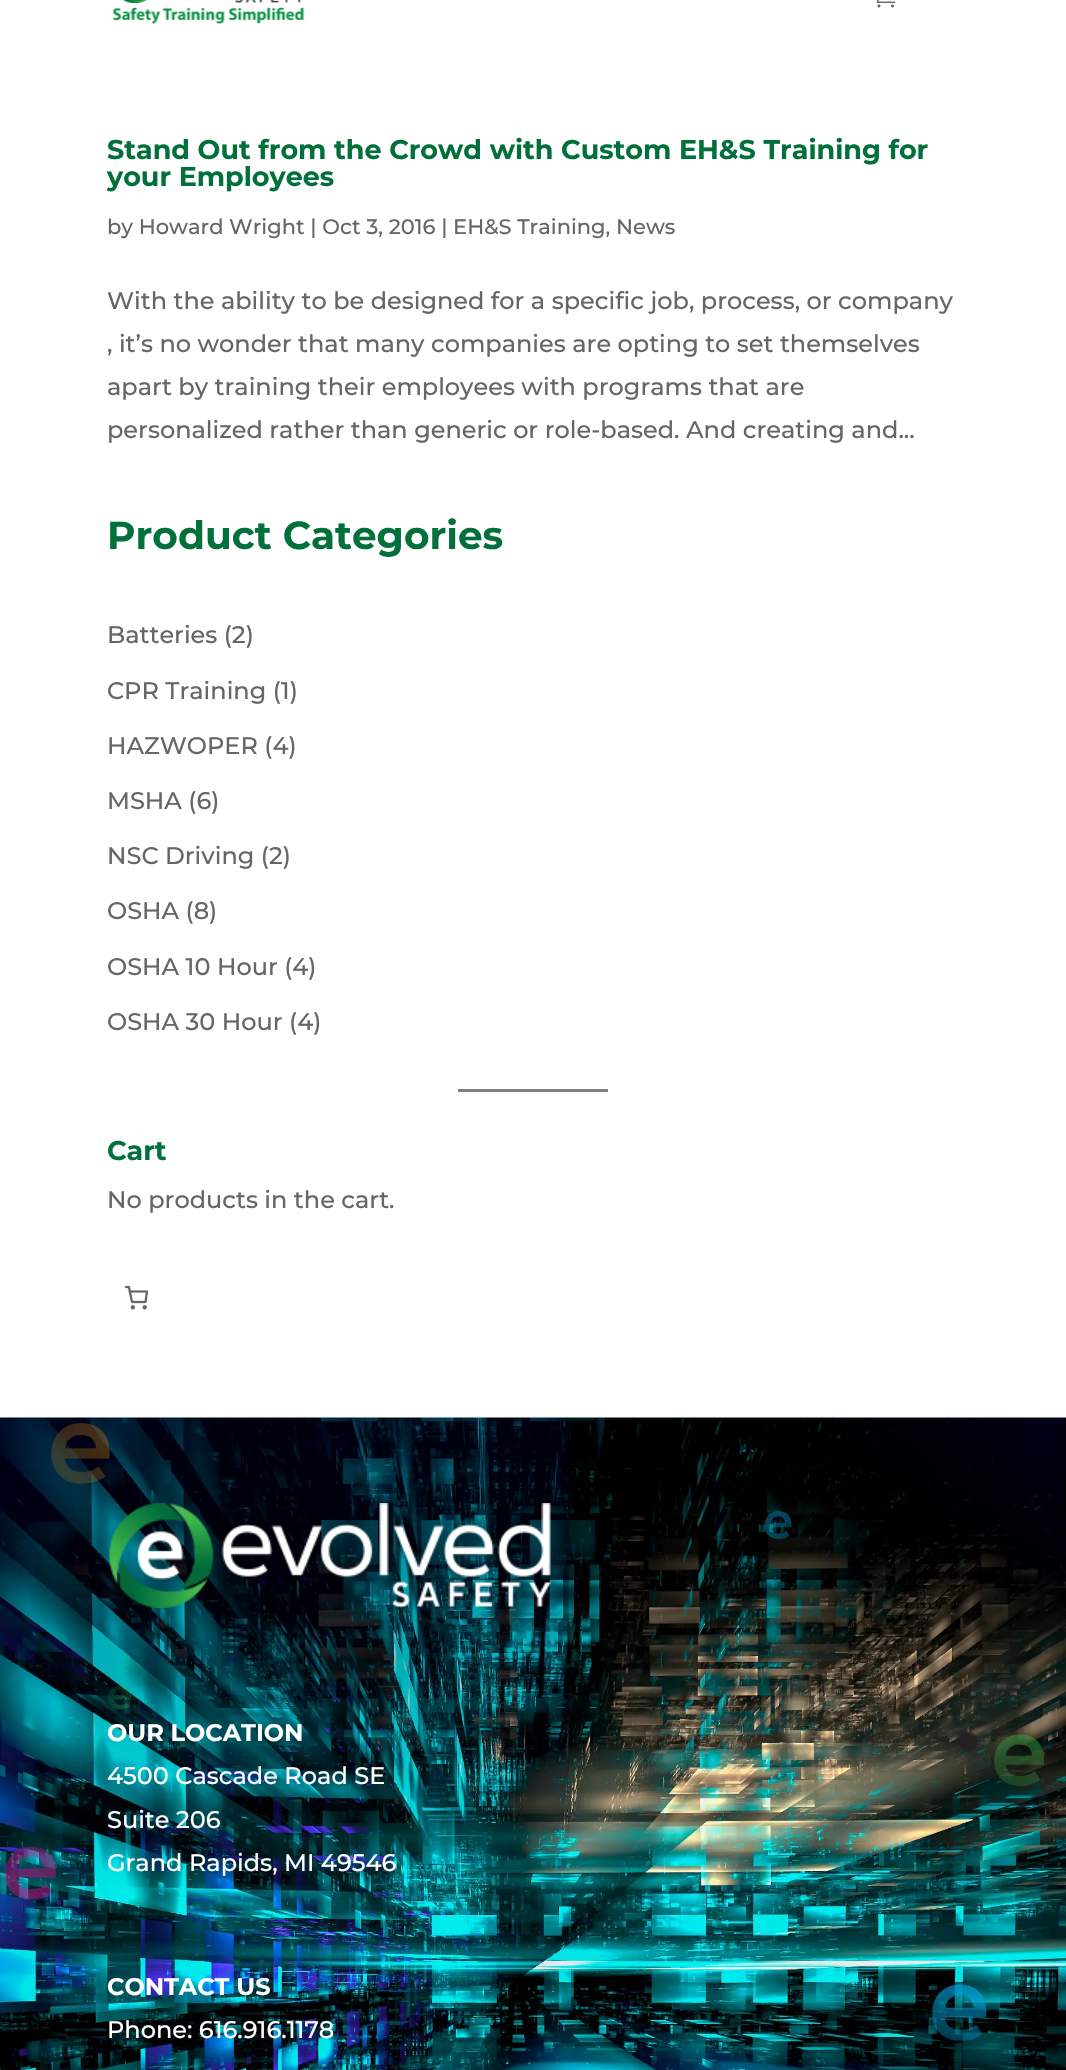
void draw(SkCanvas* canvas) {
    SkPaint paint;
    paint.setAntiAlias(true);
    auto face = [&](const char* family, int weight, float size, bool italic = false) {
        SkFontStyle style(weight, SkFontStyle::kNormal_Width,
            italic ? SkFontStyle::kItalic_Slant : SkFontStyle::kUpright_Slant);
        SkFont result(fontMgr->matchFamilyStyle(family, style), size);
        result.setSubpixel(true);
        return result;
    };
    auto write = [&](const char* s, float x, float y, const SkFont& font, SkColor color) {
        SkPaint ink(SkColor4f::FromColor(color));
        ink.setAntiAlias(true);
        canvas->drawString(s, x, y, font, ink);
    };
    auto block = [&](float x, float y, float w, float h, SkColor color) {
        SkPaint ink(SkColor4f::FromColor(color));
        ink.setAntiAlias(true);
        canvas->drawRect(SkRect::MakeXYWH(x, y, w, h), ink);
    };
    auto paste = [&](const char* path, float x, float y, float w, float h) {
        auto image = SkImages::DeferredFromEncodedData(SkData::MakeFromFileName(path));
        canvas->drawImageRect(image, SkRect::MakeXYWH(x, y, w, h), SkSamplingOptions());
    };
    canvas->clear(SK_ColorWHITE);
    paste("pic1.png", 113, 0, 192, 24);
    paste("pic2.png", 876, 0, 20, 8);
    auto kFont1 = face("Montserrat", 700, 27);
    write("Stand Out from the Crowd with Custom EH&S Training for", 107, 159, kFont1, SkColorSetRGB(1, 112, 59));
    write("your Employees", 107, 186, kFont1, SkColorSetRGB(1, 112, 59));
    auto kFont2 = face("Montserrat", 500, 21);
    write("by Howard Wright | Oct 3, 2016 | EH&S Training, News", 107, 234, kFont2, SkColorSetRGB(102, 102, 102));
    auto kFont3 = face("Montserrat", 500, 24);
    write("With the ability to be designed for a specific job, process, or company", 107, 309, kFont3, SkColorSetRGB(102, 102, 102));
    write(", it’s no wonder that many companies are opting to set themselves", 107, 352, kFont3, SkColorSetRGB(102, 102, 102));
    write("apart by training their employees with programs that are", 107, 395, kFont3, SkColorSetRGB(102, 102, 102));
    write("personalized rather than generic or role-based. And creating and...", 107, 438, kFont3, SkColorSetRGB(102, 102, 102));
    auto kFont4 = face("Montserrat", 700, 39);
    write("Product Categories", 107, 549, kFont4, SkColorSetRGB(1, 112, 59));
    write("Batteries (2)", 107, 643, kFont3, SkColorSetRGB(102, 102, 102));
    write("CPR Training (1)", 107, 699, kFont3, SkColorSetRGB(102, 102, 102));
    write("HAZWOPER (4)", 107, 754, kFont3, SkColorSetRGB(102, 102, 102));
    write("MSHA (6)", 107, 809, kFont3, SkColorSetRGB(102, 102, 102));
    write("NSC Driving (2)", 107, 864, kFont3, SkColorSetRGB(102, 102, 102));
    write("OSHA (8)", 107, 919, kFont3, SkColorSetRGB(102, 102, 102));
    write("OSHA 10 Hour (4)", 107, 975, kFont3, SkColorSetRGB(102, 102, 102));
    write("OSHA 30 Hour (4)", 107, 1030, kFont3, SkColorSetRGB(102, 102, 102));
    block(458, 1089, 150, 3, SkColorSetRGB(128, 128, 128));
    write("Cart", 107, 1160, kFont1, SkColorSetRGB(1, 112, 59));
    write("No products in the cart.", 107, 1208, kFont3, SkColorSetRGB(102, 102, 102));
    paste("pic3.png", 124, 1285, 25, 25);
    paste("pic4.png", 0, 1417, 1066, 653);
    paste("pic5.png", 109, 1503, 442, 105);
    auto kFont5 = face("Montserrat", 700, 24);
    write("OUR LOCATION", 107, 1741, kFont5, SK_ColorWHITE);
    write("4500 Cascade Road SE", 107, 1784, kFont3, SK_ColorWHITE);
    write("Suite 206", 107, 1828, kFont3, SK_ColorWHITE);
    write("Grand Rapids, MI 49546", 107, 1871, kFont3, SK_ColorWHITE);
    write("CONTACT US", 107, 1995, kFont5, SK_ColorWHITE);
    write("Phone: 616.916.1178", 107, 2038, kFont3, SK_ColorWHITE);
}
